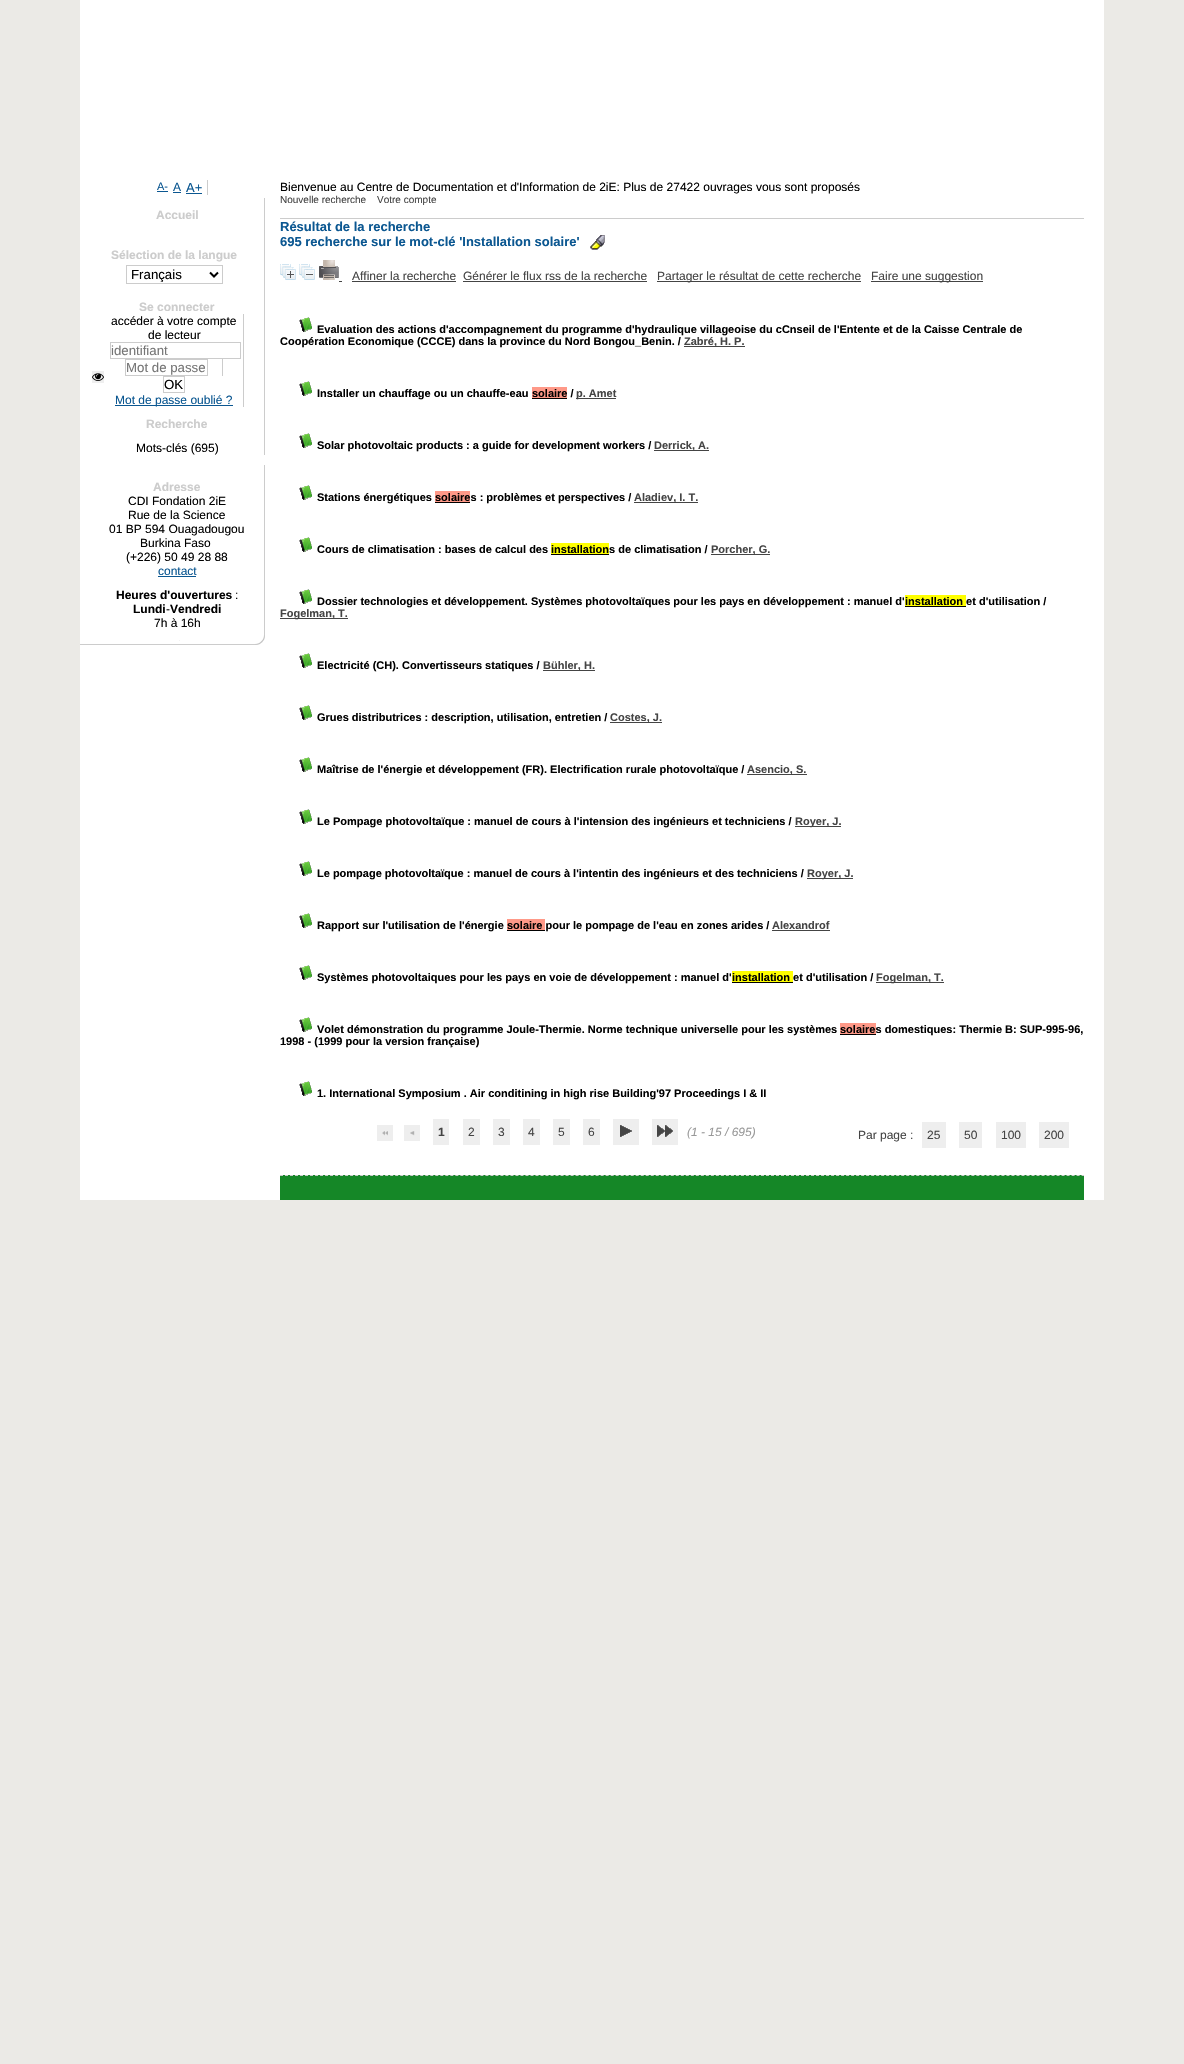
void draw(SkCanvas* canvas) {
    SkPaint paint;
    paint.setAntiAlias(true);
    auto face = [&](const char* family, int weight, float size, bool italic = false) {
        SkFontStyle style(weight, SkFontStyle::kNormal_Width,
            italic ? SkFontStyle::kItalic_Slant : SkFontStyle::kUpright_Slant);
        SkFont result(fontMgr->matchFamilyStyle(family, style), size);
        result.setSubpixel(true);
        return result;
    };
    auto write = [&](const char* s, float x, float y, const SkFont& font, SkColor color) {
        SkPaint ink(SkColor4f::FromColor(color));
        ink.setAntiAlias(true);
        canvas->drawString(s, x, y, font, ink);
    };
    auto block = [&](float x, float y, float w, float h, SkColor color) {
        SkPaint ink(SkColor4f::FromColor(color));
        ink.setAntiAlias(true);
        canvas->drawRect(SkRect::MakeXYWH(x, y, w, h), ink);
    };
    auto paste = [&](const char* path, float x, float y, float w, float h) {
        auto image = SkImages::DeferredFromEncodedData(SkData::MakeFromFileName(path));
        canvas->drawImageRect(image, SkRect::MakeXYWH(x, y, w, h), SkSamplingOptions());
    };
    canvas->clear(SkColorSetRGB(235, 234, 230));
    block(80, 0, 1024, 1200, SK_ColorWHITE);
    paste("pic1.png", 80, 630, 185, 15);
    block(207, 180, 1, 15, SkColorSetRGB(204, 204, 204));
    auto kFont1 = face("Liberation Sans", 400, 11);
    write("A-", 157, 190, kFont1, SkColorSetRGB(11, 87, 145));
    block(157, 191, 11, 1, SkColorSetRGB(11, 87, 145));
    auto kFont2 = face("Liberation Sans", 400, 12);
    write("A", 173, 191, kFont2, SkColorSetRGB(11, 87, 145));
    block(173, 192, 8, 1, SkColorSetRGB(11, 87, 145));
    auto kFont3 = face("Liberation Sans", 400, 13);
    write("A+", 186, 192, kFont3, SkColorSetRGB(11, 87, 145));
    block(186, 193, 16, 1, SkColorSetRGB(11, 87, 145));
    block(264, 198, 1, 257, SkColorSetRGB(204, 204, 204));
    auto kFont4 = face("Liberation Sans", 700, 12);
    write("Accueil", 156, 219, kFont4, SkColorSetRGB(204, 204, 204));
    write("Sélection de la langue", 111, 259, kFont4, SkColorSetRGB(204, 204, 204));
    paint.setStyle(SkPaint::kStroke_Style);
    paint.setStrokeWidth(1);
    paint.setColor(SkColorSetRGB(204, 204, 204));
    canvas->drawRect(SkRect::MakeXYWH(126.5f, 265.5f, 96, 18), paint);
    paint.setStrokeWidth(2);
    paint.setColor(SK_ColorBLACK);
    canvas->drawPath(SkPathBuilder().moveTo(210, 272.5f).lineTo(214, 276.5f).lineTo(218, 272.5f).detach(), paint);
    auto kFont5 = face("Liberation Sans", 400, 13.25f);
    write("Français", 131, 279, kFont5, SK_ColorBLACK);
    write("Se connecter", 139, 311, kFont4, SkColorSetRGB(204, 204, 204));
    block(243, 314, 1, 93, SkColorSetRGB(204, 204, 204));
    write("accéder à votre compte", 111, 325, kFont2, SK_ColorBLACK);
    write("de lecteur", 148, 339, kFont2, SK_ColorBLACK);
    paint.setStrokeWidth(1);
    paint.setColor(SkColorSetRGB(204, 204, 204));
    canvas->drawRect(SkRect::MakeXYWH(110.5f, 342.5f, 130, 16), paint);
    write("identifiant", 111, 355, kFont5, SkColorSetRGB(117, 117, 117));
    block(222, 359, 1, 17, SkColorSetRGB(204, 204, 204));
    canvas->drawRect(SkRect::MakeXYWH(125.5f, 359.5f, 82, 16), paint);
    write("Mot de passe", 126, 372, kFont5, SkColorSetRGB(117, 117, 117));
    block(92, 371, 12, 12, SkColorSetRGB(239, 239, 239));
    paste("pic2.png", 92, 373, 12, 8);
    canvas->drawRect(SkRect::MakeXYWH(163.5f, 376.5f, 21, 16), paint);
    write("OK", 164, 389, kFont5, SK_ColorBLACK);
    block(115, 405, 118, 1, SkColorSetRGB(11, 87, 145));
    write("Mot de passe oublié ?", 115, 404, kFont2, SkColorSetRGB(11, 87, 145));
    write("Recherche", 146, 428, kFont4, SkColorSetRGB(204, 204, 204));
    write("Mots-clés (695)", 136, 452, kFont2, SK_ColorBLACK);
    block(264, 465, 1, 165, SkColorSetRGB(204, 204, 204));
    write("Adresse", 153, 491, kFont4, SkColorSetRGB(204, 204, 204));
    write("CDI Fondation 2iE", 128, 505, kFont2, SK_ColorBLACK);
    write("Rue de la Science", 128, 519, kFont2, SK_ColorBLACK);
    write("01 BP 594 Ouagadougou", 109, 533, kFont2, SK_ColorBLACK);
    write("Burkina Faso", 140, 547, kFont2, SK_ColorBLACK);
    write("(+226) 50 49 28 88", 126, 561, kFont2, SK_ColorBLACK);
    write("contact", 158, 575, kFont2, SkColorSetRGB(11, 87, 145));
    block(158, 576, 38, 1, SkColorSetRGB(11, 87, 145));
    write("Heures d'ouvertures", 116, 599, kFont4, SK_ColorBLACK);
    write(":", 235, 599, kFont2, SK_ColorBLACK);
    write("Lundi", 133, 613, kFont4, SK_ColorBLACK);
    write("-", 166, 613, kFont2, SK_ColorBLACK);
    write("Vendredi", 170, 613, kFont4, SK_ColorBLACK);
    write("7h à 16h", 154, 627, kFont2, SK_ColorBLACK);
    write("Bienvenue au Centre de Documentation et d'Information de 2iE: Plus de 27422 ouvrages vous sont proposés", 280, 191, kFont2, SK_ColorBLACK);
    block(280, 218, 804, 1, SkColorSetRGB(204, 204, 204));
    auto kFont6 = face("Liberation Sans", 400, 10);
    write("Nouvelle recherche", 280, 203, kFont6, SkColorSetRGB(68, 68, 68));
    write("Votre compte", 377, 203, kFont6, SkColorSetRGB(68, 68, 68));
    auto kFont7 = face("Liberation Sans", 700, 13);
    write("Résultat de la recherche", 280, 231, kFont7, SkColorSetRGB(11, 87, 145));
    write("695 recherche sur le mot-clé 'Installation solaire'", 280, 246, kFont7, SkColorSetRGB(11, 87, 145));
    paste("pic3.png", 590, 235, 15, 15);
    paste("pic4.png", 280, 264, 16, 16);
    paste("pic5.png", 299, 264, 16, 16);
    paste("pic6.png", 319, 260, 20, 20);
    block(339, 281, 3, 1, SkColorSetRGB(68, 68, 68));
    write("Affiner la recherche", 352, 280, kFont2, SkColorSetRGB(68, 68, 68));
    block(352, 281, 104, 1, SkColorSetRGB(68, 68, 68));
    write("Générer le flux rss de la recherche", 463, 280, kFont2, SkColorSetRGB(68, 68, 68));
    block(463, 281, 184, 1, SkColorSetRGB(68, 68, 68));
    block(657, 281, 204, 1, SkColorSetRGB(68, 68, 68));
    write("Partager le résultat de cette recherche", 657, 280, kFont2, SkColorSetRGB(68, 68, 68));
    block(871, 281, 112, 1, SkColorSetRGB(68, 68, 68));
    write("Faire une suggestion", 871, 280, kFont2, SkColorSetRGB(68, 68, 68));
    paste("pic7.png", 299, 317, 13, 15);
    auto kFont8 = face("Liberation Sans", 700, 11);
    write("Evaluation des actions d'accompagnement du programme d'hydraulique villageoise du cCnseil de l'Entente et de la Caisse Centrale de", 317, 333, kFont8, SK_ColorBLACK);
    write("Coopération Economique (CCCE) dans la province du Nord Bongou_Benin. /", 280, 345, kFont8, SK_ColorBLACK);
    block(684, 346, 61, 1, SkColorSetRGB(68, 68, 68));
    write("Zabré, H. P.", 684, 345, kFont8, SkColorSetRGB(68, 68, 68));
    paste("pic7.png", 299, 381, 13, 15);
    write("Installer un chauffage ou un chauffe-eau", 317, 397, kFont8, SK_ColorBLACK);
    block(532, 387, 35, 11, SkColorSetRGB(255, 153, 136));
    write("solaire /", 532, 397, kFont8, SK_ColorBLACK);
    block(532, 398, 35, 1, SK_ColorBLACK);
    block(576, 398, 40, 1, SkColorSetRGB(68, 68, 68));
    write("p. Amet", 576, 397, kFont8, SkColorSetRGB(68, 68, 68));
    paste("pic7.png", 299, 433, 13, 15);
    write("Solar photovoltaic products : a guide for development workers /", 317, 449, kFont8, SK_ColorBLACK);
    block(654, 450, 55, 1, SkColorSetRGB(68, 68, 68));
    write("Derrick, A.", 654, 449, kFont8, SkColorSetRGB(68, 68, 68));
    paste("pic7.png", 299, 485, 13, 15);
    write("Stations énergétiques", 317, 501, kFont8, SK_ColorBLACK);
    block(435, 491, 35, 11, SkColorSetRGB(255, 153, 136));
    block(435, 502, 35, 1, SK_ColorBLACK);
    write("solaires : problèmes et perspectives /", 435, 501, kFont8, SK_ColorBLACK);
    block(634, 502, 64, 1, SkColorSetRGB(68, 68, 68));
    write("Aladiev, I. T.", 634, 501, kFont8, SkColorSetRGB(68, 68, 68));
    paste("pic7.png", 299, 537, 13, 15);
    write("Cours de climatisation : bases de calcul des", 317, 553, kFont8, SK_ColorBLACK);
    block(551, 543, 58, 11, SkColorSetRGB(255, 255, 0));
    write("installations de climatisation /", 551, 553, kFont8, SK_ColorBLACK);
    block(551, 554, 58, 1, SK_ColorBLACK);
    block(711, 554, 59, 1, SkColorSetRGB(68, 68, 68));
    write("Porcher, G.", 711, 553, kFont8, SkColorSetRGB(68, 68, 68));
    paste("pic7.png", 299, 589, 13, 15);
    write("Dossier technologies et développement. Systèmes photovoltaïques pour les pays en développement : manuel d'", 317, 605, kFont8, SK_ColorBLACK);
    block(905, 606, 61, 1, SK_ColorBLACK);
    block(905, 595, 61, 11, SkColorSetRGB(255, 255, 0));
    write("installation et d'utilisation /", 905, 605, kFont8, SK_ColorBLACK);
    block(280, 618, 68, 1, SkColorSetRGB(68, 68, 68));
    write("Fogelman, T.", 280, 617, kFont8, SkColorSetRGB(68, 68, 68));
    paste("pic7.png", 299, 653, 13, 15);
    write("Electricité (CH). Convertisseurs statiques /", 317, 669, kFont8, SK_ColorBLACK);
    block(543, 670, 52, 1, SkColorSetRGB(68, 68, 68));
    write("Bühler, H.", 543, 669, kFont8, SkColorSetRGB(68, 68, 68));
    paste("pic7.png", 299, 705, 13, 15);
    write("Grues distributrices : description, utilisation, entretien /", 317, 721, kFont8, SK_ColorBLACK);
    block(610, 722, 52, 1, SkColorSetRGB(68, 68, 68));
    write("Costes, J.", 610, 721, kFont8, SkColorSetRGB(68, 68, 68));
    paste("pic7.png", 299, 757, 13, 15);
    write("Maîtrise de l'énergie et développement (FR). Electrification rurale photovoltaïque /", 317, 773, kFont8, SK_ColorBLACK);
    block(747, 774, 60, 1, SkColorSetRGB(68, 68, 68));
    write("Asencio, S.", 747, 773, kFont8, SkColorSetRGB(68, 68, 68));
    paste("pic7.png", 299, 809, 13, 15);
    write("Le Pompage photovoltaïque : manuel de cours à l'intension des ingénieurs et techniciens /", 317, 825, kFont8, SK_ColorBLACK);
    block(795, 826, 46, 1, SkColorSetRGB(68, 68, 68));
    write("Royer, J.", 795, 825, kFont8, SkColorSetRGB(68, 68, 68));
    paste("pic7.png", 299, 861, 13, 15);
    write("Le pompage photovoltaïque : manuel de cours à l'intentin des ingénieurs et des techniciens /", 317, 877, kFont8, SK_ColorBLACK);
    block(807, 878, 46, 1, SkColorSetRGB(68, 68, 68));
    write("Royer, J.", 807, 877, kFont8, SkColorSetRGB(68, 68, 68));
    paste("pic7.png", 299, 913, 13, 15);
    write("Rapport sur l'utilisation de l'énergie", 317, 929, kFont8, SK_ColorBLACK);
    block(507, 919, 38, 11, SkColorSetRGB(255, 153, 136));
    block(507, 930, 38, 1, SK_ColorBLACK);
    write("solaire pour le pompage de l'eau en zones arides /", 507, 929, kFont8, SK_ColorBLACK);
    block(772, 930, 58, 1, SkColorSetRGB(68, 68, 68));
    write("Alexandrof", 772, 929, kFont8, SkColorSetRGB(68, 68, 68));
    paste("pic7.png", 299, 965, 13, 15);
    write("Systèmes photovoltaiques pour les pays en voie de développement : manuel d'", 317, 981, kFont8, SK_ColorBLACK);
    block(732, 982, 61, 1, SK_ColorBLACK);
    block(732, 971, 61, 11, SkColorSetRGB(255, 255, 0));
    write("installation et d'utilisation /", 732, 981, kFont8, SK_ColorBLACK);
    block(876, 982, 68, 1, SkColorSetRGB(68, 68, 68));
    write("Fogelman, T.", 876, 981, kFont8, SkColorSetRGB(68, 68, 68));
    paste("pic7.png", 299, 1017, 13, 15);
    write("Volet démonstration du programme Joule-Thermie. Norme technique universelle pour les systèmes", 317, 1033, kFont8, SK_ColorBLACK);
    block(840, 1023, 36, 11, SkColorSetRGB(255, 153, 136));
    block(840, 1034, 36, 1, SK_ColorBLACK);
    write("solaires domestiques: Thermie B: SUP-995-96,", 840, 1033, kFont8, SK_ColorBLACK);
    write("1998 - (1999 pour la version française)", 280, 1045, kFont8, SK_ColorBLACK);
    paste("pic7.png", 299, 1081, 13, 15);
    write("1. International Symposium . Air conditining in high rise Building'97 Proceedings I & II", 317, 1097, kFont8, SK_ColorBLACK);
    block(377, 1125, 16, 16, SkColorSetRGB(238, 238, 238));
    paste("pic8.png", 382, 1131, 6, 5);
    block(404, 1125, 16, 16, SkColorSetRGB(238, 238, 238));
    paste("pic9.png", 410, 1131, 5, 5);
    block(433, 1119, 16, 26, SkColorSetRGB(238, 238, 238));
    write("1", 438, 1136, kFont4, SkColorSetRGB(68, 68, 68));
    block(463, 1119, 17, 26, SkColorSetRGB(238, 238, 238));
    write("2", 468, 1136, kFont2, SkColorSetRGB(68, 68, 68));
    block(493, 1119, 17, 26, SkColorSetRGB(238, 238, 238));
    write("3", 498, 1136, kFont2, SkColorSetRGB(68, 68, 68));
    block(523, 1119, 17, 26, SkColorSetRGB(238, 238, 238));
    write("4", 528, 1136, kFont2, SkColorSetRGB(68, 68, 68));
    block(553, 1119, 17, 26, SkColorSetRGB(238, 238, 238));
    write("5", 558, 1136, kFont2, SkColorSetRGB(68, 68, 68));
    block(583, 1119, 17, 26, SkColorSetRGB(238, 238, 238));
    write("6", 588, 1136, kFont2, SkColorSetRGB(68, 68, 68));
    block(613, 1119, 26, 26, SkColorSetRGB(238, 238, 238));
    paste("pic10.png", 620, 1125, 12, 12);
    block(652, 1119, 26, 26, SkColorSetRGB(238, 238, 238));
    paste("pic11.png", 657, 1125, 16, 12);
    auto kFont9 = face("Liberation Sans", 400, 12, true);
    write("(1 - 15 / 695)", 687, 1136, kFont9, SkColorSetRGB(153, 153, 153));
    write("Par page :", 858, 1139, kFont2, SkColorSetRGB(68, 68, 68));
    block(922, 1122, 24, 26, SkColorSetRGB(238, 238, 238));
    write("25", 927, 1139, kFont2, SkColorSetRGB(68, 68, 68));
    block(959, 1122, 23, 26, SkColorSetRGB(238, 238, 238));
    write("50", 964, 1139, kFont2, SkColorSetRGB(68, 68, 68));
    block(996, 1122, 30, 26, SkColorSetRGB(238, 238, 238));
    write("100", 1001, 1139, kFont2, SkColorSetRGB(68, 68, 68));
    block(1039, 1122, 30, 26, SkColorSetRGB(238, 238, 238));
    write("200", 1044, 1139, kFont2, SkColorSetRGB(68, 68, 68));
    block(280, 1175, 804, 25, SkColorSetRGB(21, 135, 39));
    paint.setPathEffect(SkDashPathEffect::Make({{3, 2.01f}}, 0));
    canvas->drawPath(SkPathBuilder().moveTo(280, 1175.5f).lineTo(1084, 1175.5f).detach(), paint);
    paint.setPathEffect(nullptr);
}
